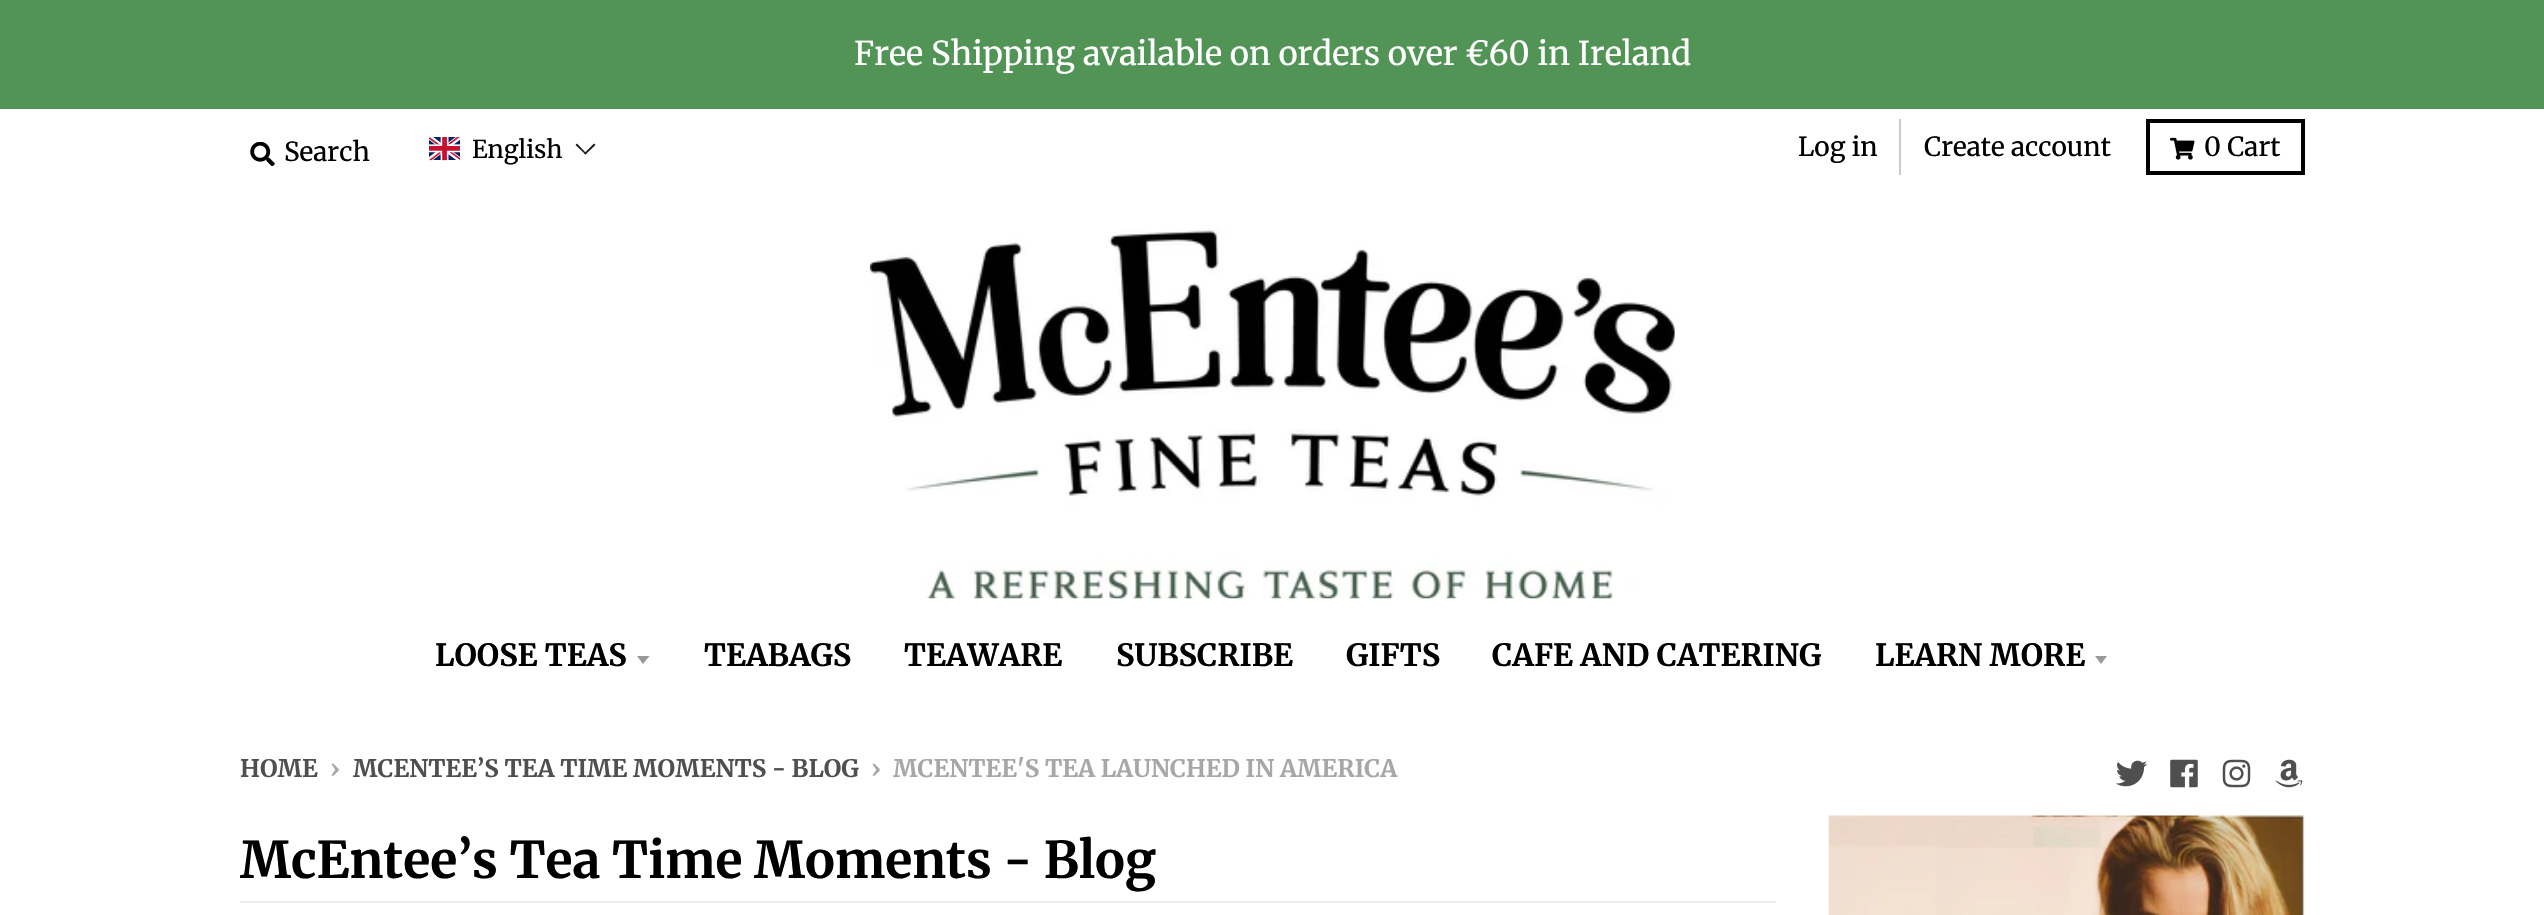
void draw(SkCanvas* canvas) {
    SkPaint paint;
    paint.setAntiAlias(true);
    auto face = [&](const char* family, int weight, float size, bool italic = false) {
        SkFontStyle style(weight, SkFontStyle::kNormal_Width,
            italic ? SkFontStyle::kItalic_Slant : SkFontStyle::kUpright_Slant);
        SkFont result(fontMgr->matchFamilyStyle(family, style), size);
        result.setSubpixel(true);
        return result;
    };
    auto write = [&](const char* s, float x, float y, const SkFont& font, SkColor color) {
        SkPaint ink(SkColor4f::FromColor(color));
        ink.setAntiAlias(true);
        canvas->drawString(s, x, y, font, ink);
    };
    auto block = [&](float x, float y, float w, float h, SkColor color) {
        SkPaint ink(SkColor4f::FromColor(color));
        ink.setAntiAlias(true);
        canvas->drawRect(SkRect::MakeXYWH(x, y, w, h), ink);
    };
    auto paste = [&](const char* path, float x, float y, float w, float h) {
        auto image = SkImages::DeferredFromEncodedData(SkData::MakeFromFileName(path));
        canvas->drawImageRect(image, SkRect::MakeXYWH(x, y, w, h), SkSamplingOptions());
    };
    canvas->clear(SK_ColorWHITE);
    block(0, 0, 2544, 109, SkColorSetRGB(82, 147, 86));
    auto kFont1 = face("Merriweather", 400, 32.8f);
    write("Free Shipping available on orders over €60 in Ireland", 854, 65, kFont1, SK_ColorWHITE);
    paste("pic1.png", 250, 142, 25, 24);
    auto kFont2 = face("Merriweather", 400, 26.25f);
    write("Search", 284, 161, kFont2, SK_ColorBLACK);
    paste("pic2.png", 429, 137, 31, 24);
    auto kFont3 = face("Merriweather", 400, 24.5f);
    write("English", 472, 158, kFont3, SK_ColorBLACK);
    paint.setColor(SkColorSetRGB(26, 26, 26));
    canvas->drawPath(SkPathBuilder().moveTo(594, 143.5f).lineTo(595.5f, 145).lineTo(585.5f, 154.5f).lineTo(584, 153.5f).close().detach(), paint);
    canvas->drawPath(SkPathBuilder().moveTo(577, 143.5f).lineTo(586.5f, 153.5f).lineTo(585.5f, 154.5f).lineTo(575.5f, 145).close().detach(), paint);
    block(1899, 119, 2, 56, SkColorSetRGB(204, 204, 204));
    write("Log in", 1798, 156, kFont2, SK_ColorBLACK);
    write("Create account", 1924, 156, kFont2, SK_ColorBLACK);
    paint.setStyle(SkPaint::kStroke_Style);
    paint.setStrokeWidth(4);
    paint.setColor(SK_ColorBLACK);
    canvas->drawRect(SkRect::MakeXYWH(2148, 121, 155, 52), paint);
    paste("pic3.png", 2170, 137, 25, 23);
    write("0 Cart", 2204, 156, kFont2, SK_ColorBLACK);
    paste("pic4.png", 869, 228, 806, 371);
    auto kFont4 = face("Merriweather", 700, 30.6f);
    write("LOOSE TEAS", 435, 666, kFont4, SK_ColorBLACK);
    paint.setStyle(SkPaint::kFill_Style);
    paint.setColor(SkColorSetRGB(153, 153, 153));
    canvas->drawPath(SkPathBuilder().moveTo(637, 656).lineTo(643, 664).lineTo(649.5f, 656).close().detach(), paint);
    write("TEABAGS", 704, 666, kFont4, SK_ColorBLACK);
    write("TEAWARE", 904, 666, kFont4, SK_ColorBLACK);
    write("SUBSCRIBE", 1116, 666, kFont4, SK_ColorBLACK);
    write("GIFTS", 1346, 666, kFont4, SK_ColorBLACK);
    write("CAFE AND CATERING", 1492, 666, kFont4, SK_ColorBLACK);
    write("LEARN MORE", 1875, 666, kFont4, SK_ColorBLACK);
    canvas->drawPath(SkPathBuilder().moveTo(2095, 656).lineTo(2101, 664).lineTo(2107, 656).close().detach(), paint);
    auto kFont5 = face("Merriweather", 700, 24.1f);
    write("HOME", 240, 777, kFont5, SkColorSetRGB(79, 79, 79));
    write("›", 330, 777, kFont5, SkColorSetRGB(167, 167, 167));
    write("MCENTEE’S TEA TIME MOMENTS - BLOG", 353, 777, kFont5, SkColorSetRGB(79, 79, 79));
    write("›", 871, 777, kFont5, SkColorSetRGB(167, 167, 167));
    write("MCENTEE'S TEA LAUNCHED IN AMERICA", 893, 777, kFont5, SkColorSetRGB(167, 167, 167));
    paste("pic5.png", 2116, 760, 31, 27);
    paste("pic6.png", 2170, 759, 28, 29);
    paste("pic7.png", 2222, 759, 29, 29);
    paste("pic8.png", 2275, 759, 28, 29);
    block(240, 901, 1536, 2, SkColorSetRGB(237, 237, 237));
    auto kFont6 = face("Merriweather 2", 700, 50.5f);
    write("McEntee’s Tea Time Moments - Blog", 240, 878, kFont6, SK_ColorBLACK);
    paste("pic9.png", 1828, 815, 477, 100);
}
